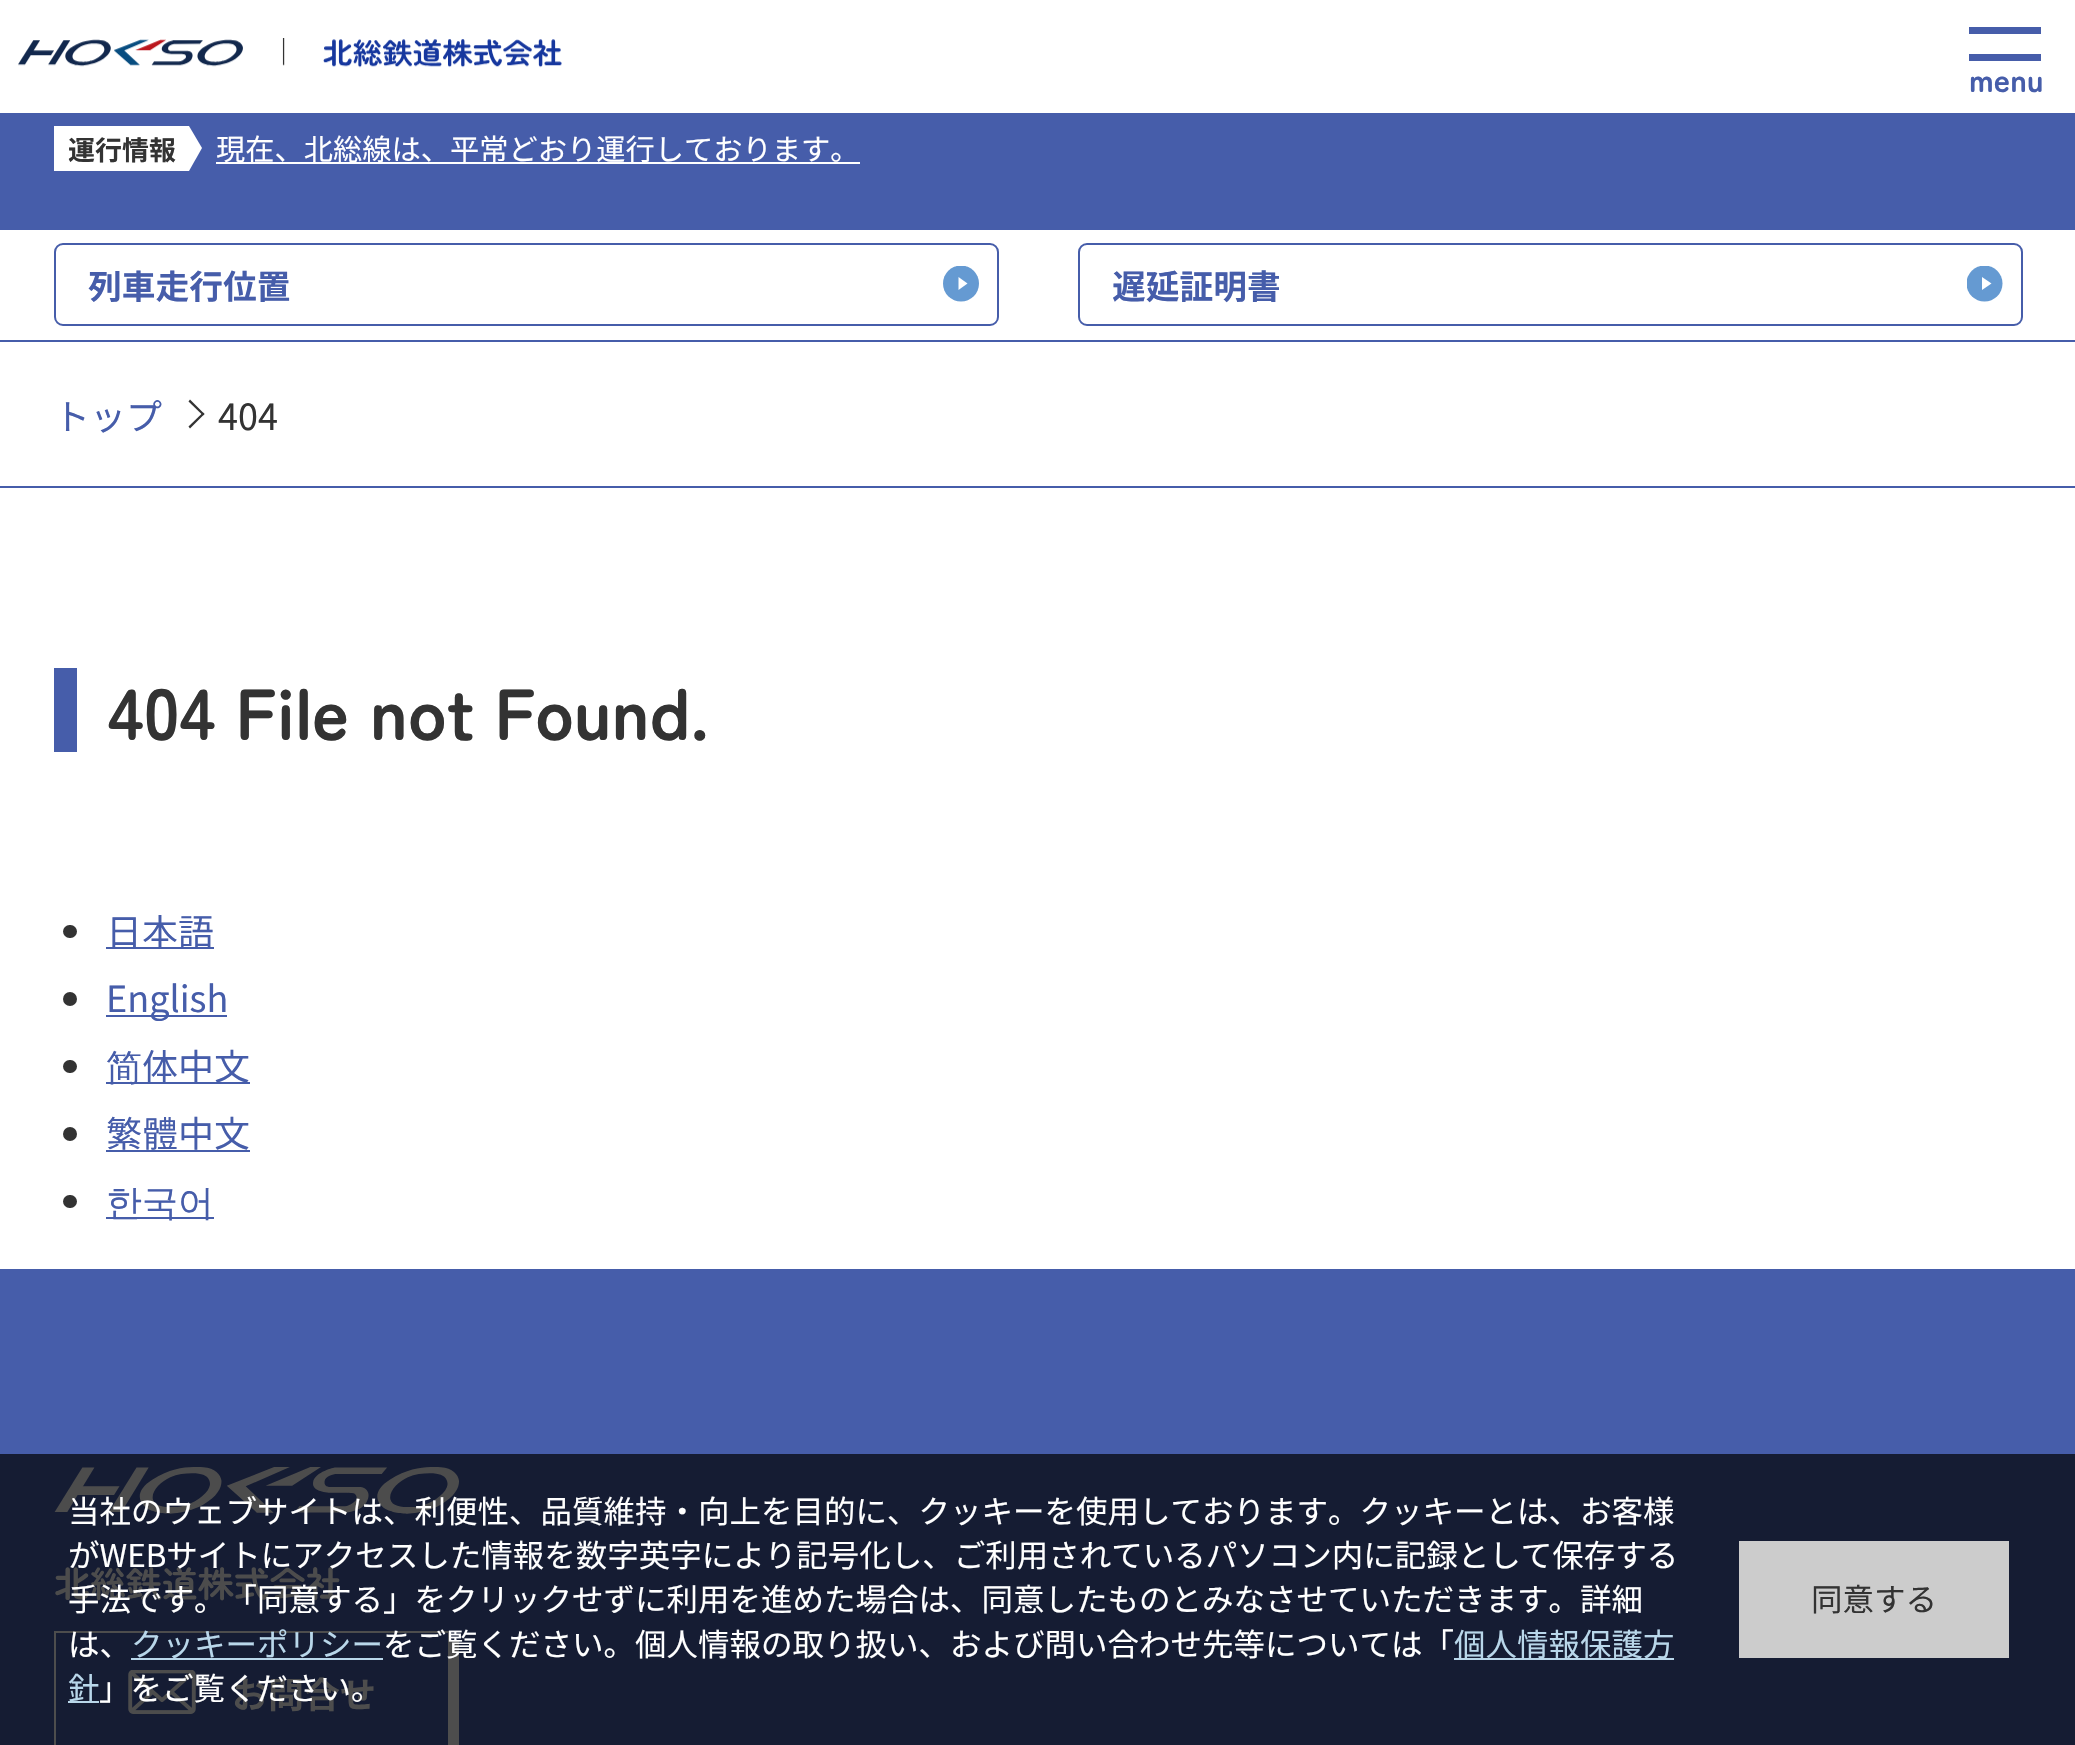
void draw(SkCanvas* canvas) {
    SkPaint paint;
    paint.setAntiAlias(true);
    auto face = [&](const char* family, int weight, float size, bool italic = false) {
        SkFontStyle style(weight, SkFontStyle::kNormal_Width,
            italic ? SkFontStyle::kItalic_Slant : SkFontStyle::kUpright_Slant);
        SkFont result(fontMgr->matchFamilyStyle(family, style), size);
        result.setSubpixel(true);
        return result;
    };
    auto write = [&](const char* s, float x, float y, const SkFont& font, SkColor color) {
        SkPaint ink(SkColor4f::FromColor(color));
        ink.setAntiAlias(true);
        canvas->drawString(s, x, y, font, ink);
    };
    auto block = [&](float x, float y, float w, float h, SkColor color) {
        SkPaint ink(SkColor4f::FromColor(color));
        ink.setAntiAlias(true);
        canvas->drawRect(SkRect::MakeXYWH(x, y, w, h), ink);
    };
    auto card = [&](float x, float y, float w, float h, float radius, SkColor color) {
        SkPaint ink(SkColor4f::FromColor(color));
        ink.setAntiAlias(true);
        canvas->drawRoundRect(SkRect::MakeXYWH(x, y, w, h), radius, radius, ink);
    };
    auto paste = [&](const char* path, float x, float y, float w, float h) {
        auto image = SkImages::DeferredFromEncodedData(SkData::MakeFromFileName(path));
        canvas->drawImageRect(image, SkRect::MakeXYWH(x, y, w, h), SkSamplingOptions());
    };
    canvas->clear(SK_ColorWHITE);
    paste("pic1.png", 18, 38, 544, 30);
    block(1969, 27, 72, 7, SkColorSetRGB(70, 93, 170));
    block(1969, 54, 72, 7, SkColorSetRGB(70, 93, 170));
    auto kFont1 = face("Zen Maru Gothic", 700, 31.5f);
    write("menu", 1969, 92, kFont1, SkColorSetRGB(70, 93, 170));
    block(0, 113, 2075, 117, SkColorSetRGB(70, 93, 170));
    block(54, 126, 135, 45, SK_ColorWHITE);
    auto kFont2 = face("Noto Sans JP", 700, 27);
    write("運行情報", 68, 160, kFont2, SkColorSetRGB(51, 51, 51));
    paint.setColor(SK_ColorWHITE);
    canvas->drawPath(SkPathBuilder().moveTo(189, 171).lineTo(189, 126).lineTo(202, 148).close().detach(), paint);
    block(216, 162, 644, 2, SK_ColorWHITE);
    auto kFont3 = face("Noto Sans JP", 400, 29.25f);
    write("現在、北総線は、平常どおり運行しております。", 216, 160, kFont3, SK_ColorWHITE);
    block(0, 340, 2075, 2, SkColorSetRGB(70, 93, 170));
    paint.setStyle(SkPaint::kStroke_Style);
    paint.setStrokeWidth(2);
    paint.setColor(SkColorSetRGB(70, 93, 170));
    canvas->drawRoundRect(SkRect::MakeXYWH(55, 244, 943, 81), 8, 8, paint);
    auto kFont4 = face("Noto Sans JP", 700, 33.75f);
    write("列車走行位置", 88, 299, kFont4, SkColorSetRGB(70, 93, 170));
    canvas->save();
    canvas->clipRect(SkRect::MakeXYWH(943, 266, 36, 36));
    paint.setStyle(SkPaint::kFill_Style);
    paint.setColor(SkColorSetRGB(101, 154, 210));
    canvas->drawCircle(961, 283.5f, 18, paint);
    canvas->restore();
    paint.setColor(SK_ColorWHITE);
    canvas->drawPath(SkPathBuilder().moveTo(967.5f, 283.5f).lineTo(958.5f, 277).lineTo(958.5f, 290).close().detach(), paint);
    paint.setStyle(SkPaint::kStroke_Style);
    paint.setColor(SkColorSetRGB(70, 93, 170));
    canvas->drawRoundRect(SkRect::MakeXYWH(1079, 244, 943, 81), 8, 8, paint);
    write("遅延証明書", 1112, 299, kFont4, SkColorSetRGB(70, 93, 170));
    canvas->save();
    canvas->clipRect(SkRect::MakeXYWH(1967, 266, 36, 36));
    paint.setStyle(SkPaint::kFill_Style);
    paint.setColor(SkColorSetRGB(101, 154, 210));
    canvas->drawCircle(1984.5f, 283.5f, 18, paint);
    canvas->restore();
    paint.setColor(SK_ColorWHITE);
    canvas->drawPath(SkPathBuilder().moveTo(1991.5f, 283.5f).lineTo(1982, 277).lineTo(1982, 290).close().detach(), paint);
    block(0, 486, 2075, 2, SkColorSetRGB(70, 93, 170));
    auto kFont5 = face("Noto Sans JP", 400, 36);
    write("トップ", 54, 430, kFont5, SkColorSetRGB(70, 93, 170));
    paint.setColor(SkColorSetRGB(51, 51, 51));
    canvas->drawPath(SkPathBuilder().moveTo(188.5f, 401.5f).lineTo(190, 399.5f).lineTo(204.5f, 414).lineTo(203, 415.5f).close().detach(), paint);
    canvas->drawPath(SkPathBuilder().moveTo(188.5f, 426.5f).lineTo(203, 412.5f).lineTo(204.5f, 414).lineTo(190, 428.5f).close().detach(), paint);
    write("404", 218, 430, kFont5, SkColorSetRGB(51, 51, 51));
    block(54, 668, 23, 84, SkColorSetRGB(70, 93, 170));
    auto kFont6 = face("Zen Maru Gothic", 700, 72);
    write("404 File not Found.", 108, 740, kFont6, SkColorSetRGB(51, 51, 51));
    card(63, 925, 14, 13, 6.5f, SkColorSetRGB(51, 51, 51));
    block(106, 947, 108, 2, SkColorSetRGB(70, 93, 170));
    write("日本語", 106, 945, kFont5, SkColorSetRGB(70, 93, 170));
    canvas->drawCircle(70, 999, 7, paint);
    block(106, 1015, 121, 2, SkColorSetRGB(70, 93, 170));
    write("English", 106, 1012, kFont5, SkColorSetRGB(70, 93, 170));
    card(63, 1060, 14, 13, 6.5f, SkColorSetRGB(51, 51, 51));
    block(106, 1082, 144, 2, SkColorSetRGB(70, 93, 170));
    auto kFont7 = face("WenQuanYi Zen Hei", 500, 36);
    write("简", 106, 1080, kFont7, SkColorSetRGB(70, 93, 170));
    write("体中文", 142, 1080, kFont5, SkColorSetRGB(70, 93, 170));
    canvas->drawCircle(70, 1134, 7, paint);
    write("繁體中文", 106, 1147, kFont5, SkColorSetRGB(70, 93, 170));
    block(106, 1150, 144, 2, SkColorSetRGB(70, 93, 170));
    card(63, 1195, 14, 13, 6.5f, SkColorSetRGB(51, 51, 51));
    block(106, 1217, 108, 2, SkColorSetRGB(70, 93, 170));
    write("한국어", 106, 1215, kFont7, SkColorSetRGB(70, 93, 170));
    block(0, 1454, 2075, 291, SkColorSetRGB(21, 28, 51));
    paste("pic2.png", 54, 1467, 405, 134);
    auto kFont8 = face("Noto Sans JP", 400, 31.5f);
    write("当社のウェブサイトは、利便性、品質維持・向上を目的に、クッキーを使用しております。クッキーとは、お客様", 68, 1523, kFont8, SK_ColorWHITE);
    write("がWEBサイトにアクセスした情報を数字英字により記号化し、ご利用されているパソコン内に記録として保存する", 68, 1567, kFont8, SK_ColorWHITE);
    write("手法です。「同意する」をクリックせずに利用を進めた場合は、同意したものとみなさせていただきます。詳細", 68, 1611, kFont8, SK_ColorWHITE);
    paint.setStyle(SkPaint::kStroke_Style);
    paint.setColor(SkColorSetRGB(77, 77, 77));
    canvas->drawRect(SkRect::MakeXYWH(55, 1632, 394, 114), paint);
    write("は、", 68, 1656, kFont8, SK_ColorWHITE);
    block(131, 1658, 252, 2, SkColorSetRGB(185, 215, 234));
    write("クッキーポリシー", 131, 1656, kFont8, SkColorSetRGB(185, 215, 234));
    block(450, 1640, 9, 105, SkColorSetRGB(77, 77, 77));
    write("をご覧ください。個人情報の取り扱い、および問い合わせ先等については「", 383, 1656, kFont8, SK_ColorWHITE);
    block(1454, 1658, 220, 2, SkColorSetRGB(185, 215, 234));
    write("個人情報保護方", 1454, 1656, kFont8, SkColorSetRGB(185, 215, 234));
    block(68, 1701, 31, 2, SkColorSetRGB(185, 215, 234));
    write("針", 68, 1700, kFont8, SkColorSetRGB(185, 215, 234));
    paste("pic3.png", 128, 1670, 68, 44);
    auto kFont9 = face("Noto Sans JP", 700, 36);
    write("お問合せ", 232, 1708, kFont9, SkColorSetRGB(77, 77, 77));
    write("」をご覧ください。", 99, 1700, kFont8, SK_ColorWHITE);
    block(1739, 1541, 270, 117, SkColorSetRGB(204, 204, 204));
    write("同意する", 1811, 1611, kFont8, SkColorSetRGB(51, 51, 51));
    block(0, 1269, 2075, 185, SkColorSetRGB(70, 93, 170));
}
